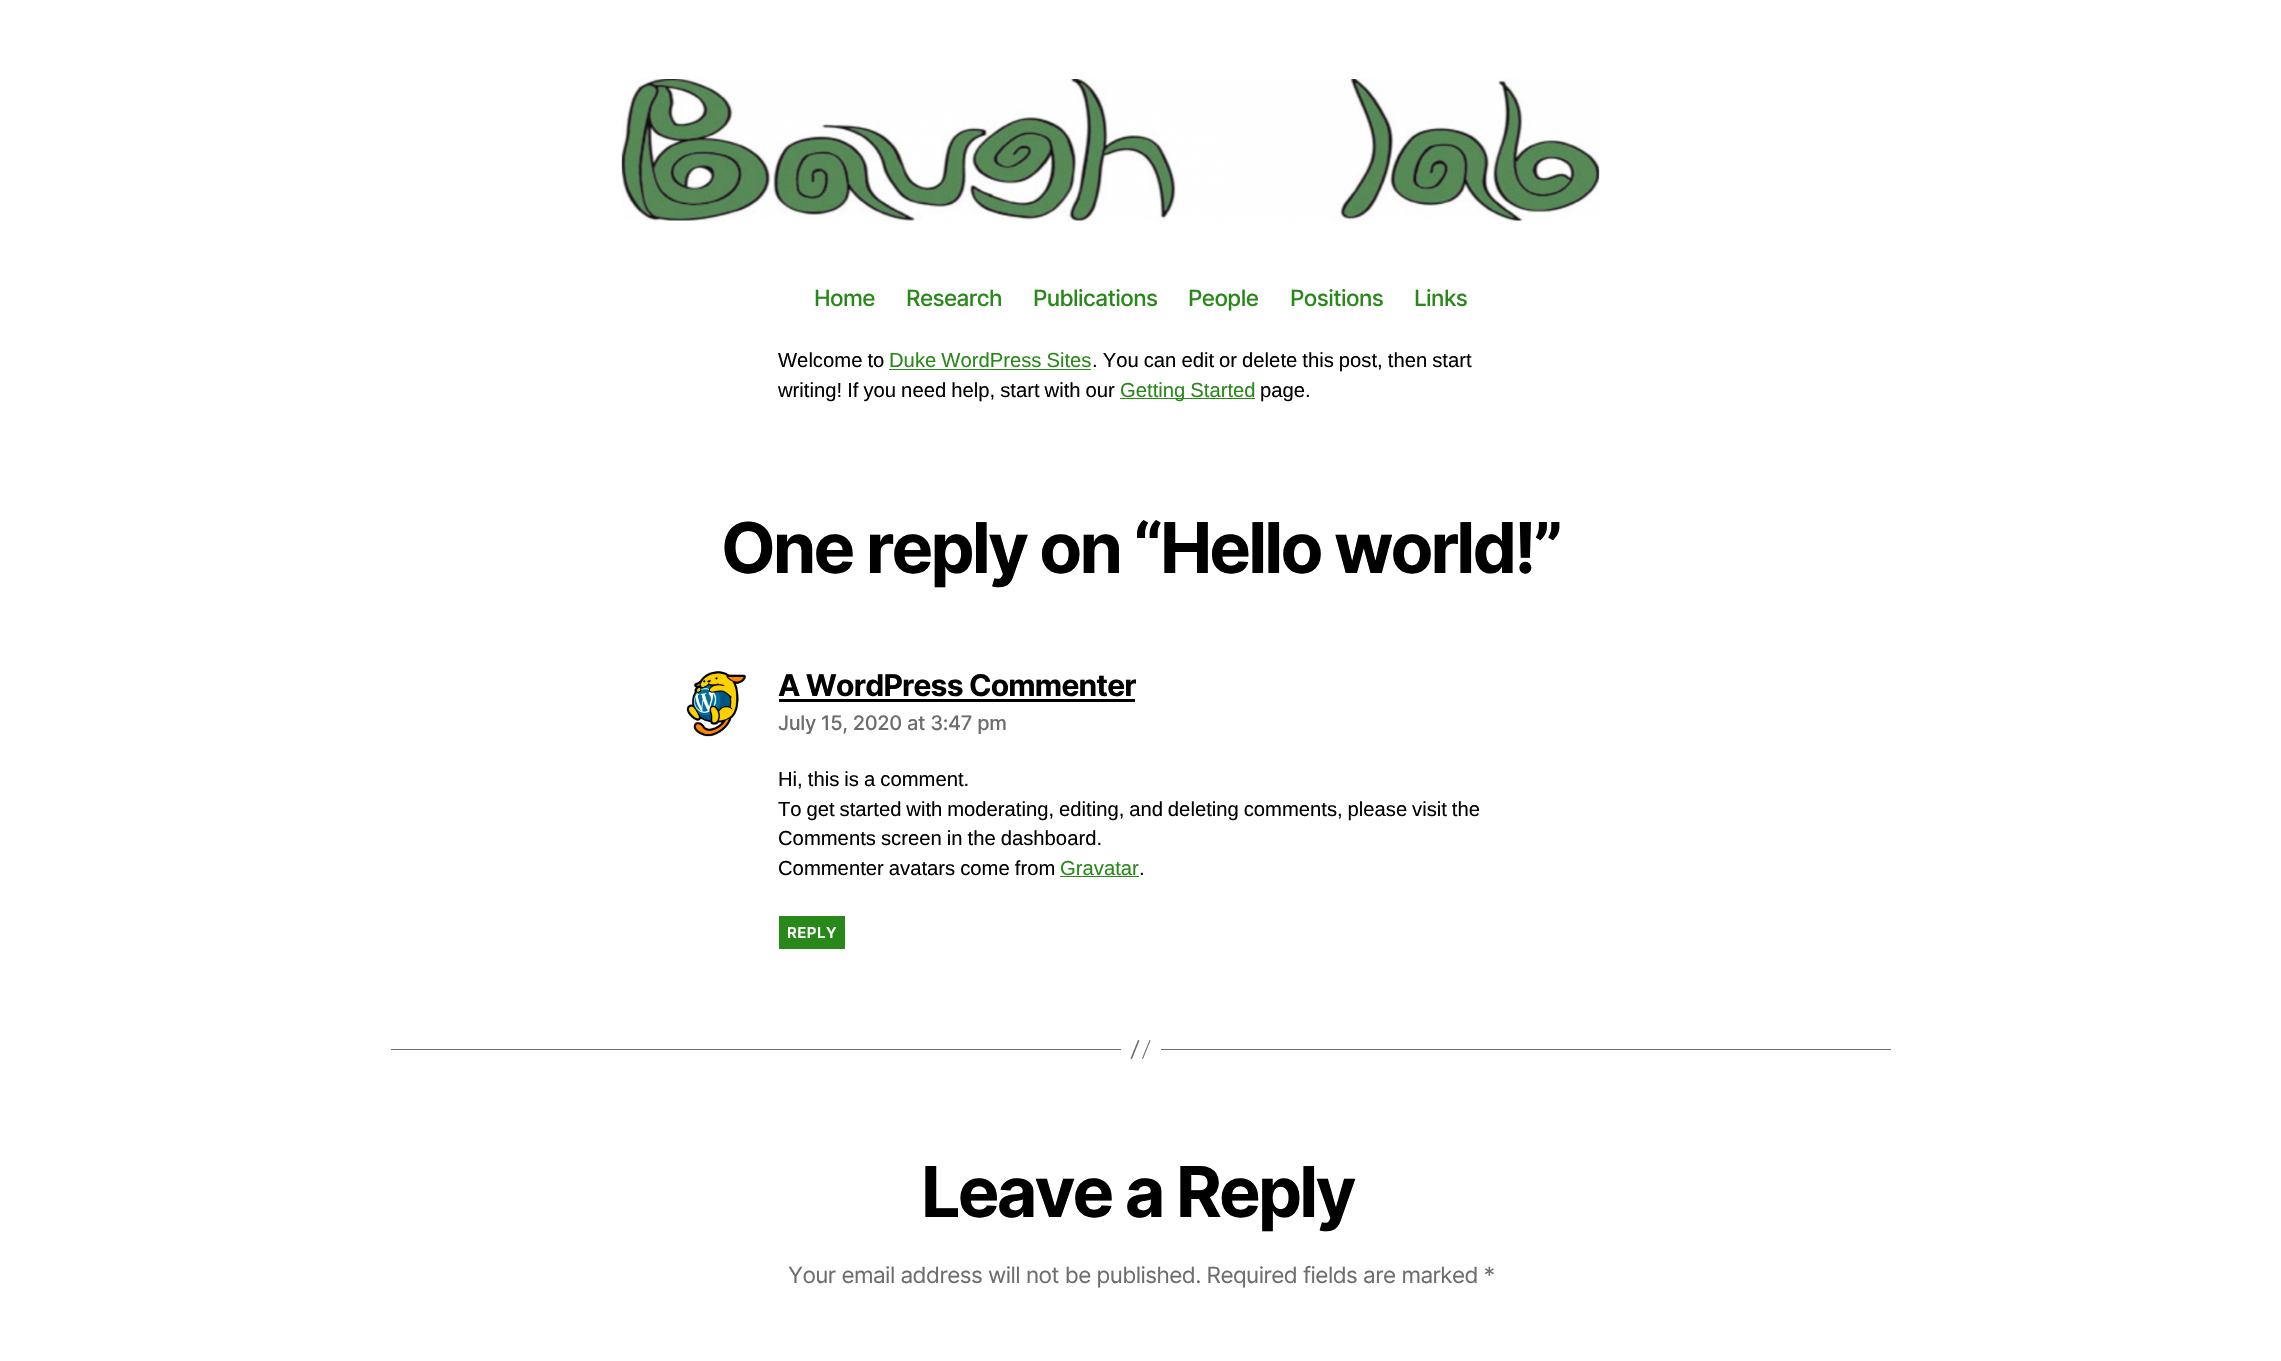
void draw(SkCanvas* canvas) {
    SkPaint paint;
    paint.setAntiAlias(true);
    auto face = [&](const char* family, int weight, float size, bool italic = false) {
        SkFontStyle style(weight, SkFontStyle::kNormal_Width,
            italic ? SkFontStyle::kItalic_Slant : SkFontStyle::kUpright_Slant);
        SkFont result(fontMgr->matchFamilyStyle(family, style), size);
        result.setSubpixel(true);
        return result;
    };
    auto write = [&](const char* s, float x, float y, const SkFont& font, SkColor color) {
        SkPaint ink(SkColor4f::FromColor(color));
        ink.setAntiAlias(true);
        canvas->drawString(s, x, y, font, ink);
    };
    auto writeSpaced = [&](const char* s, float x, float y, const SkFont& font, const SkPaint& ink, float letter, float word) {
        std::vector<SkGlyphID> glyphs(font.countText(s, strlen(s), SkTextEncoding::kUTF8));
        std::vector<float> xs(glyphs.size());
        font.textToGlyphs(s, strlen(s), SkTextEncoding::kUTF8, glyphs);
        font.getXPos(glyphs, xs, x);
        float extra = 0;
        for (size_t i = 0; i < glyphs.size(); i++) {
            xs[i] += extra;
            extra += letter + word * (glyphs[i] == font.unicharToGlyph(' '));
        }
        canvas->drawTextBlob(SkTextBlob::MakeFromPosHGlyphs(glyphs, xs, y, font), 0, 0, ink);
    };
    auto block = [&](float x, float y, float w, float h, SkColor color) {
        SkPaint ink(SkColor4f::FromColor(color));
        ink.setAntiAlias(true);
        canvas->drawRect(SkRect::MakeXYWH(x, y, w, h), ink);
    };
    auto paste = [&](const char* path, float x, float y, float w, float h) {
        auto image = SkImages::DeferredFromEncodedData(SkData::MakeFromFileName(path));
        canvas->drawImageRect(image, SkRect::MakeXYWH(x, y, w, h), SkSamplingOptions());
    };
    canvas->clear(SK_ColorWHITE);
    paste("pic1.png", 621, 79, 979, 142);
    auto kFont1 = face("Inter", 500, 22.5f);
    paint.setColor(SkColorSetRGB(41, 136, 26));
    writeSpaced("Home", 814, 306, kFont1, paint, -0.6f, 0);
    writeSpaced("Research", 906, 306, kFont1, paint, -0.6f, 0);
    writeSpaced("Publications", 1033, 306, kFont1, paint, -0.6f, 0);
    writeSpaced("People", 1188, 306, kFont1, paint, -0.6f, 0);
    writeSpaced("Positions", 1290, 306, kFont1, paint, -0.6f, 0);
    writeSpaced("Links", 1414, 306, kFont1, paint, -0.6f, 0);
    auto kFont2 = face("Liberation Sans", 400, 20.25f);
    paint.setColor(SK_ColorBLACK);
    writeSpaced("Welcome to", 778, 367, kFont2, paint, 0, -0.6f);
    paint.setColor(SkColorSetRGB(41, 136, 26));
    writeSpaced("Duke WordPress Sites", 889, 367, kFont2, paint, 0, -0.6f);
    block(889, 369, 202, 1, SkColorSetRGB(41, 136, 26));
    paint.setColor(SK_ColorBLACK);
    writeSpaced(". You can edit or delete this post, then start", 1092, 367, kFont2, paint, 0, -0.6f);
    writeSpaced("writing! If you need help, start with our", 778, 397, kFont2, paint, 0, -0.6f);
    block(1120, 398, 135, 1, SkColorSetRGB(41, 136, 26));
    paint.setColor(SkColorSetRGB(41, 136, 26));
    writeSpaced("Getting Started", 1120, 397, kFont2, paint, 0, -0.6f);
    write("page.", 1260, 397, kFont2, SK_ColorBLACK);
    auto kFont3 = face("Inter", 700, 70);
    paint.setColor(SK_ColorBLACK);
    writeSpaced("One reply on “Hello world!”", 721, 573, kFont3, paint, -2.9f, 0);
    paste("pic2.png", 686, 671, 60, 66);
    auto kFont4 = face("Inter", 700, 30);
    writeSpaced("A WordPress Commenter", 778, 696, kFont4, paint, -0.8f, 0);
    block(779, 699, 356, 3, SK_ColorBLACK);
    auto kFont5 = face("Inter", 500, 20);
    paint.setColor(SkColorSetRGB(109, 109, 109));
    writeSpaced("July 15, 2020 at 3:47 pm", 778, 730, kFont5, paint, -0.3f, 0);
    paint.setColor(SK_ColorBLACK);
    writeSpaced("Hi, this is a comment.", 778, 786, kFont2, paint, 0, -0.6f);
    writeSpaced("To get started with moderating, editing, and deleting comments, please visit the", 778, 816, kFont2, paint, 0, -0.75f);
    writeSpaced("Comments screen in the dashboard.", 778, 845, kFont2, paint, 0, -0.6f);
    writeSpaced("Commenter avatars come from", 778, 875, kFont2, paint, 0, -0.6f);
    write("Gravatar", 1060, 875, kFont2, SkColorSetRGB(41, 136, 26));
    block(1060, 876, 79, 1, SkColorSetRGB(41, 136, 26));
    write(".", 1139, 875, kFont2, SK_ColorBLACK);
    block(779, 916, 66, 33, SkColorSetRGB(41, 136, 26));
    auto kFont6 = face("Inter", 600, 15);
    paint.setColor(SK_ColorWHITE);
    writeSpaced("REPLY", 787, 938, kFont6, paint, 0.5f, 0);
    block(1161, 1049, 730, 1, SkColorSetRGB(109, 109, 109));
    block(391, 1049, 730, 1, SkColorSetRGB(109, 109, 109));
    paint.setColor(SkColorSetRGB(109, 109, 109));
    canvas->drawPath(SkPathBuilder().moveTo(1138, 1040).lineTo(1139.5f, 1040.5f).lineTo(1132, 1059).lineTo(1130.5f, 1058.5f).close().moveTo(1149.5f, 1040).lineTo(1150.5f, 1040.5f).lineTo(1143, 1059).lineTo(1142, 1058.5f).close().detach(), paint);
    paint.setColor(SK_ColorBLACK);
    writeSpaced("Leave a Reply", 921, 1217, kFont3, paint, -2.9f, 0);
    auto kFont7 = face("Inter", 400, 22.5f);
    paint.setColor(SkColorSetRGB(109, 109, 109));
    writeSpaced("Your email address will not be published. Required fields are marked *", 788, 1283, kFont7, paint, -0.55f, 0);
}
